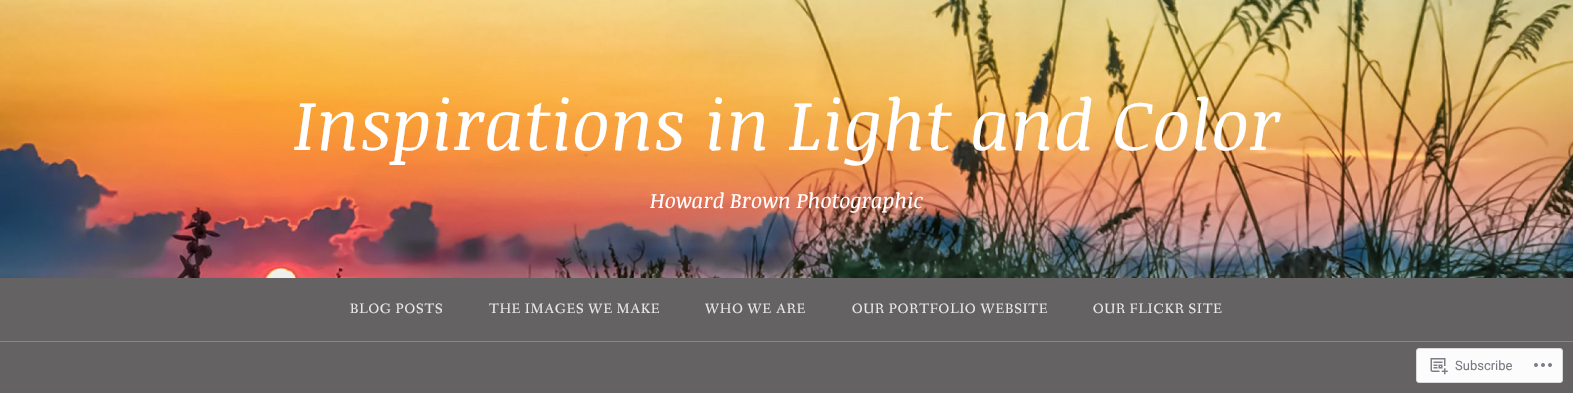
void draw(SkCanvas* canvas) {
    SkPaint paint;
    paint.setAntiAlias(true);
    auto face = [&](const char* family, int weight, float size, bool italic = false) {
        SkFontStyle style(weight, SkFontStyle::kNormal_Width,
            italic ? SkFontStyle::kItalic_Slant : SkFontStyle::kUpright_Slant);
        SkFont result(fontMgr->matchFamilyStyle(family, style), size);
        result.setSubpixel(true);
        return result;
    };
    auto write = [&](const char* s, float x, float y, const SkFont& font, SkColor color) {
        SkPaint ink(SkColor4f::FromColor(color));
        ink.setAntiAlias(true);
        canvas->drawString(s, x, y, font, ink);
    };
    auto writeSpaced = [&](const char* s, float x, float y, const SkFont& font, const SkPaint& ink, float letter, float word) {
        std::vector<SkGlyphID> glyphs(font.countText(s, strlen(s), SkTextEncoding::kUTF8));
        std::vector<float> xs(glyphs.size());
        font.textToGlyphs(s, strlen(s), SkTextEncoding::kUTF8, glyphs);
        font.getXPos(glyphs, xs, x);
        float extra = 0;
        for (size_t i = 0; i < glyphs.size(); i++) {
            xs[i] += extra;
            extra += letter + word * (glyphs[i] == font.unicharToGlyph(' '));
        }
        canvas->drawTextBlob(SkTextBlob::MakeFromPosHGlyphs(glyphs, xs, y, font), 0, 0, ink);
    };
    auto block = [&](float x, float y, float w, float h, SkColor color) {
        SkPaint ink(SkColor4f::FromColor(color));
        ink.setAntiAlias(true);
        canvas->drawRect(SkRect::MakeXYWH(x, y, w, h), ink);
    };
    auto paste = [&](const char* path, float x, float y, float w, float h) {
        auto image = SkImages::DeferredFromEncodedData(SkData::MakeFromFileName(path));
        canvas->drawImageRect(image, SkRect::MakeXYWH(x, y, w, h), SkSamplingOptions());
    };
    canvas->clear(SkColorSetRGB(100, 98, 98));
    paste("pic1.png", 0, 0, 1573, 278);
    auto kFont1 = face("Noticia Text", 400, 70.25f, true);
    write("Inspirations in Light and Color", 294, 150, kFont1, SK_ColorWHITE);
    auto kFont2 = face("Noticia Text", 400, 20.75f, true);
    write("Howard Brown Photographic", 650, 208, kFont2, SK_ColorWHITE);
    block(0, 341, 1573, 1, SkColorSetRGB(136, 135, 135));
    auto kFont3 = face("Fanwood Text", 400, 14);
    paint.setColor(SkColorSetRGB(234, 234, 234));
    writeSpaced("BLOG POSTS", 350, 313, kFont3, paint, 1, 0);
    writeSpaced("THE IMAGES WE MAKE", 489, 313, kFont3, paint, 1, 0);
    writeSpaced("WHO WE ARE", 705, 313, kFont3, paint, 1, 0);
    writeSpaced("OUR PORTFOLIO WEBSITE", 852, 313, kFont3, paint, 1, 0);
    writeSpaced("OUR FLICKR SITE", 1093, 313, kFont3, paint, 1, 0);
    paint.setColor(SkColorSetRGB(252, 252, 252));
    canvas->drawRoundRect(SkRect::MakeXYWH(1416.5f, 348.5f, 146, 34), 2.5f, 2.5f, paint);
    paint.setStyle(SkPaint::kStroke_Style);
    paint.setStrokeWidth(1);
    paint.setColor(SkColorSetRGB(218, 218, 220));
    canvas->drawRoundRect(SkRect::MakeXYWH(1416.5f, 348.5f, 146, 34), 2.5f, 2.5f, paint);
    paste("pic2.png", 1430, 358, 18, 17);
    auto kFont4 = face("Roboto", 400, 13);
    write("Subscribe", 1455, 370, kFont4, SkColorSetRGB(120, 123, 129));
    paste("pic3.png", 1534, 363, 18, 4);
}
